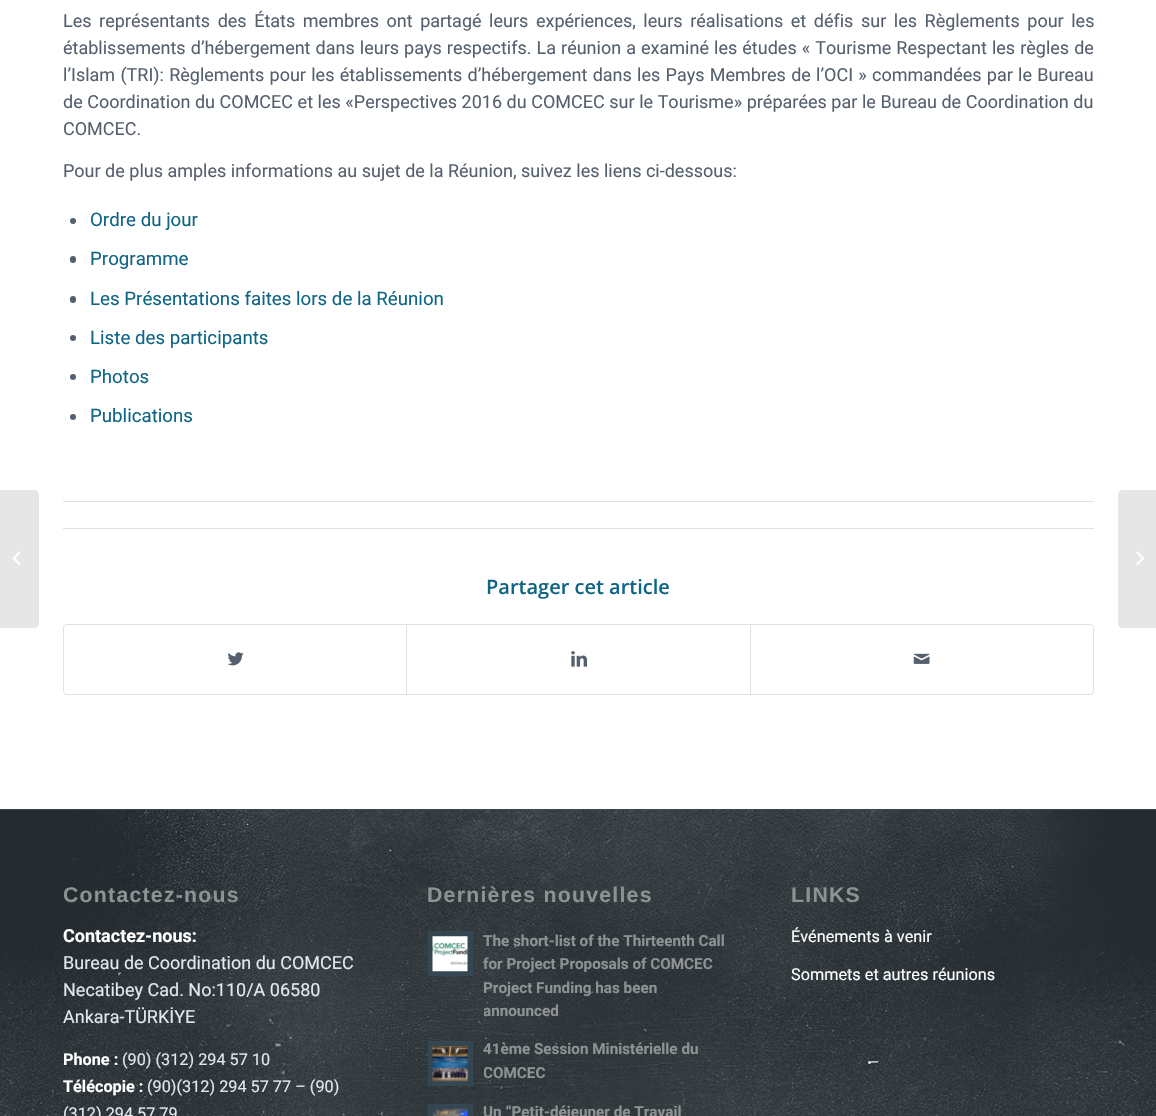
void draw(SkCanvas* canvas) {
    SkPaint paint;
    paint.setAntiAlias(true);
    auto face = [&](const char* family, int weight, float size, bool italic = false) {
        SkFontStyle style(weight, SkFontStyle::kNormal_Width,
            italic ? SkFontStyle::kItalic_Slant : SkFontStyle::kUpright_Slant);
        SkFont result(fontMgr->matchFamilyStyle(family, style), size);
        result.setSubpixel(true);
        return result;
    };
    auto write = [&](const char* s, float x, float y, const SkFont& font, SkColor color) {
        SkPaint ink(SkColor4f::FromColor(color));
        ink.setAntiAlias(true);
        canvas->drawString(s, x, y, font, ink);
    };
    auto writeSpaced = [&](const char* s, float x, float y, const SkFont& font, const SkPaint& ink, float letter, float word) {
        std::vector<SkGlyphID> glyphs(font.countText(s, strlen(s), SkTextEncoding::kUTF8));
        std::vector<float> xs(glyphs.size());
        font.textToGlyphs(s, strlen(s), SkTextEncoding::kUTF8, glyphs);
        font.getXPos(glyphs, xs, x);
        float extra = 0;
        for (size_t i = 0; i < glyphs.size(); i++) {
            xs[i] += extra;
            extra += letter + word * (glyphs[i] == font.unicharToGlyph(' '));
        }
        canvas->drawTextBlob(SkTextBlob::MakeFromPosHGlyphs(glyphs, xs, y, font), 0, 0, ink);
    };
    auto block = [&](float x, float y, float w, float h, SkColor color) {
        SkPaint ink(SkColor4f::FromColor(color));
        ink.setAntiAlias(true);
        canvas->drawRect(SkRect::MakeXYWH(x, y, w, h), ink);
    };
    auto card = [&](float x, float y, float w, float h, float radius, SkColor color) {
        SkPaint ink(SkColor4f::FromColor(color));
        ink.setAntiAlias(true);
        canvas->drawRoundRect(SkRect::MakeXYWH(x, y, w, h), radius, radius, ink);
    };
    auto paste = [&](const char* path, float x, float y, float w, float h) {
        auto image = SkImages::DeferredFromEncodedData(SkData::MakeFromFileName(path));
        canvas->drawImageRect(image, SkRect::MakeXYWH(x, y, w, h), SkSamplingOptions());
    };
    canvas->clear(SK_ColorWHITE);
    paint.setColor(SkColorSetRGB(230, 230, 230));
    canvas->drawPath(SkPathBuilder().moveTo(0, 490).lineTo(34, 490).cubicTo(37, 490, 39, 492, 39, 495).lineTo(39, 623).cubicTo(39, 626, 37, 628, 34, 628).lineTo(0, 628).close().detach(), paint);
    paste("pic1.png", 12, 551, 9, 14);
    auto kFont1 = face("Roboto", 400, 18);
    paint.setColor(SkColorSetRGB(85, 96, 110));
    writeSpaced("Les représentants des États membres ont partagé leurs expériences, leurs réalisations et défis sur les Règlements pour les", 63, 27, kFont1, paint, 0, 3.1f);
    writeSpaced("établissements d’hébergement dans leurs pays respectifs. La réunion a examiné les études « Tourisme Respectant les règles de", 63, 54, kFont1, paint, 0, 0.6f);
    writeSpaced("l’Islam (TRI): Règlements pour les établissements d’hébergement dans les Pays Membres de l’OCI » commandées par le Bureau", 63, 81, kFont1, paint, 0, 0.8f);
    writeSpaced("de Coordination du COMCEC et les «Perspectives 2016 du COMCEC sur le Tourisme» préparées par le Bureau de Coordination du", 63, 108, kFont1, paint, 0, 0.1f);
    write("COMCEC.", 63, 135, kFont1, SkColorSetRGB(85, 96, 110));
    write("Pour de plus amples informations au sujet de la Réunion, suivez les liens ci-dessous:", 63, 177, kFont1, SkColorSetRGB(85, 96, 110));
    canvas->drawCircle(73, 221, 3, paint);
    auto kFont2 = face("Roboto", 400, 18.7f);
    write("Ordre du jour", 90, 226, kFont2, SkColorSetRGB(15, 101, 133));
    card(70, 256, 6, 7, 3, SkColorSetRGB(85, 96, 110));
    write("Programme", 90, 265, kFont2, SkColorSetRGB(15, 101, 133));
    card(70, 296, 6, 7, 3, SkColorSetRGB(85, 96, 110));
    write("Les Présentations faites lors de la Réunion", 90, 305, kFont2, SkColorSetRGB(15, 101, 133));
    canvas->drawCircle(73, 338, 3, paint);
    write("Liste des participants", 90, 344, kFont2, SkColorSetRGB(15, 101, 133));
    canvas->drawCircle(73, 377, 3, paint);
    write("Photos", 90, 383, kFont2, SkColorSetRGB(15, 101, 133));
    canvas->drawCircle(73, 417, 3, paint);
    write("Publications", 90, 422, kFont2, SkColorSetRGB(15, 101, 133));
    block(63, 501, 1031, 1, SkColorSetRGB(225, 225, 225));
    block(63, 528, 1031, 1, SkColorSetRGB(225, 225, 225));
    auto kFont3 = face("Open Sans", 600, 20);
    write("Partager cet article", 486, 594, kFont3, SkColorSetRGB(15, 101, 133));
    paint.setStyle(SkPaint::kStroke_Style);
    paint.setStrokeWidth(1);
    paint.setColor(SkColorSetRGB(225, 225, 225));
    canvas->drawRoundRect(SkRect::MakeXYWH(63.5f, 624.5f, 1030, 70), 3.5f, 3.5f, paint);
    paste("pic2.png", 227, 652, 17, 14);
    block(406, 625, 1, 69, SkColorSetRGB(225, 225, 225));
    paste("pic3.png", 571, 651, 16, 16);
    block(750, 625, 1, 69, SkColorSetRGB(225, 225, 225));
    paste("pic4.png", 913, 653, 17, 11);
    block(0, 810, 1156, 306, SkColorSetRGB(35, 43, 48));
    paste("pic5.png", 0, 810, 1156, 306);
    block(0, 809, 1156, 1, SkColorSetRGB(56, 72, 82));
    auto kFont4 = face("Liberation Sans", 700, 21.25f);
    paint.setStyle(SkPaint::kFill_Style);
    paint.setColor(SkColorSetRGB(142, 147, 146));
    writeSpaced("Contactez-nous", 63, 902, kFont4, paint, 1.25f, 0);
    auto kFont5 = face("Roboto", 700, 18);
    write("Contactez-nous:", 63, 942, kFont5, SK_ColorWHITE);
    write("Bureau de Coordination du COMCEC", 63, 969, kFont1, SkColorSetRGB(228, 230, 240));
    write("Necatibey Cad. No:110/A 06580", 63, 996, kFont1, SkColorSetRGB(228, 230, 240));
    write("Ankara-TÜRKİYE", 63, 1023, kFont1, SkColorSetRGB(228, 230, 240));
    auto kFont6 = face("Roboto", 700, 16.25f);
    write("Phone :", 63, 1065, kFont6, SK_ColorWHITE);
    auto kFont7 = face("Roboto", 400, 16.25f);
    write("(90) (312) 294 57 10", 122, 1065, kFont7, SkColorSetRGB(228, 230, 240));
    write("Télécopie :", 63, 1092, kFont6, SK_ColorWHITE);
    write("(90)(312) 294 57 77 – (90)", 147, 1092, kFont7, SkColorSetRGB(228, 230, 240));
    write("(312) 294 57 79", 63, 1119, kFont7, SkColorSetRGB(228, 230, 240));
    writeSpaced("Dernières nouvelles", 427, 902, kFont4, paint, 1.25f, 0);
    paint.setColor(SkColorSetRGB(52, 70, 82));
    canvas->drawRect(SkRect::MakeXYWH(428.5f, 931.5f, 44, 44), paint);
    paint.setStyle(SkPaint::kStroke_Style);
    paint.setColor(SkColorSetRGB(56, 72, 82));
    canvas->drawRect(SkRect::MakeXYWH(428.5f, 931.5f, 44, 44), paint);
    paste("pic6.png", 432, 936, 36, 36);
    auto kFont8 = face("Roboto", 700, 15.25f);
    write("The short-list of the Thirteenth Call", 483, 946, kFont8, SkColorSetRGB(142, 147, 146));
    write("for Project Proposals of COMCEC", 483, 969, kFont8, SkColorSetRGB(142, 147, 146));
    write("Project Funding has been", 483, 993, kFont8, SkColorSetRGB(142, 147, 146));
    canvas->save();
    canvas->clipRect(SkRect::MakeXYWH(484, 929, 246, 95));
    write("announced", 483, 1016, kFont8, SkColorSetRGB(142, 147, 146));
    canvas->restore();
    paint.setStyle(SkPaint::kFill_Style);
    paint.setColor(SkColorSetRGB(52, 70, 82));
    canvas->drawRect(SkRect::MakeXYWH(428.5f, 1041.5f, 44, 44), paint);
    paint.setStyle(SkPaint::kStroke_Style);
    paint.setColor(SkColorSetRGB(56, 72, 82));
    canvas->drawRect(SkRect::MakeXYWH(428.5f, 1041.5f, 44, 44), paint);
    paste("pic7.png", 432, 1046, 36, 36);
    write("41ème Session Ministérielle du", 483, 1054, kFont8, SkColorSetRGB(142, 147, 146));
    canvas->save();
    canvas->clipRect(SkRect::MakeXYWH(484, 1039, 246, 46));
    write("COMCEC", 483, 1078, kFont8, SkColorSetRGB(142, 147, 146));
    canvas->restore();
    paint.setStyle(SkPaint::kFill_Style);
    paint.setColor(SkColorSetRGB(52, 70, 82));
    canvas->drawRect(SkRect::MakeXYWH(428.5f, 1104.5f, 44, 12), paint);
    paint.setStyle(SkPaint::kStroke_Style);
    paint.setColor(SkColorSetRGB(56, 72, 82));
    canvas->drawRect(SkRect::MakeXYWH(428.5f, 1104.5f, 44, 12), paint);
    paste("pic8.png", 432, 1108, 36, 8);
    write("Un “Petit-déjeuner de Travail", 483, 1117, kFont8, SkColorSetRGB(142, 147, 146));
    paint.setStyle(SkPaint::kFill_Style);
    paint.setColor(SkColorSetRGB(142, 147, 146));
    writeSpaced("LINKS", 791, 902, kFont4, paint, 1.25f, 0);
    write("Événements à venir", 791, 942, kFont7, SK_ColorWHITE);
    write("Sommets et autres réunions", 791, 980, kFont7, SK_ColorWHITE);
    paint.setColor(SkColorSetRGB(230, 230, 230));
    canvas->drawPath(SkPathBuilder().moveTo(1123, 490).lineTo(1156, 490).lineTo(1156, 628).lineTo(1123, 628).cubicTo(1120, 628, 1118, 626, 1118, 623).lineTo(1118, 495).cubicTo(1118, 492, 1120, 490, 1123, 490).close().detach(), paint);
    paste("pic9.png", 1136, 551, 8, 14);
}
